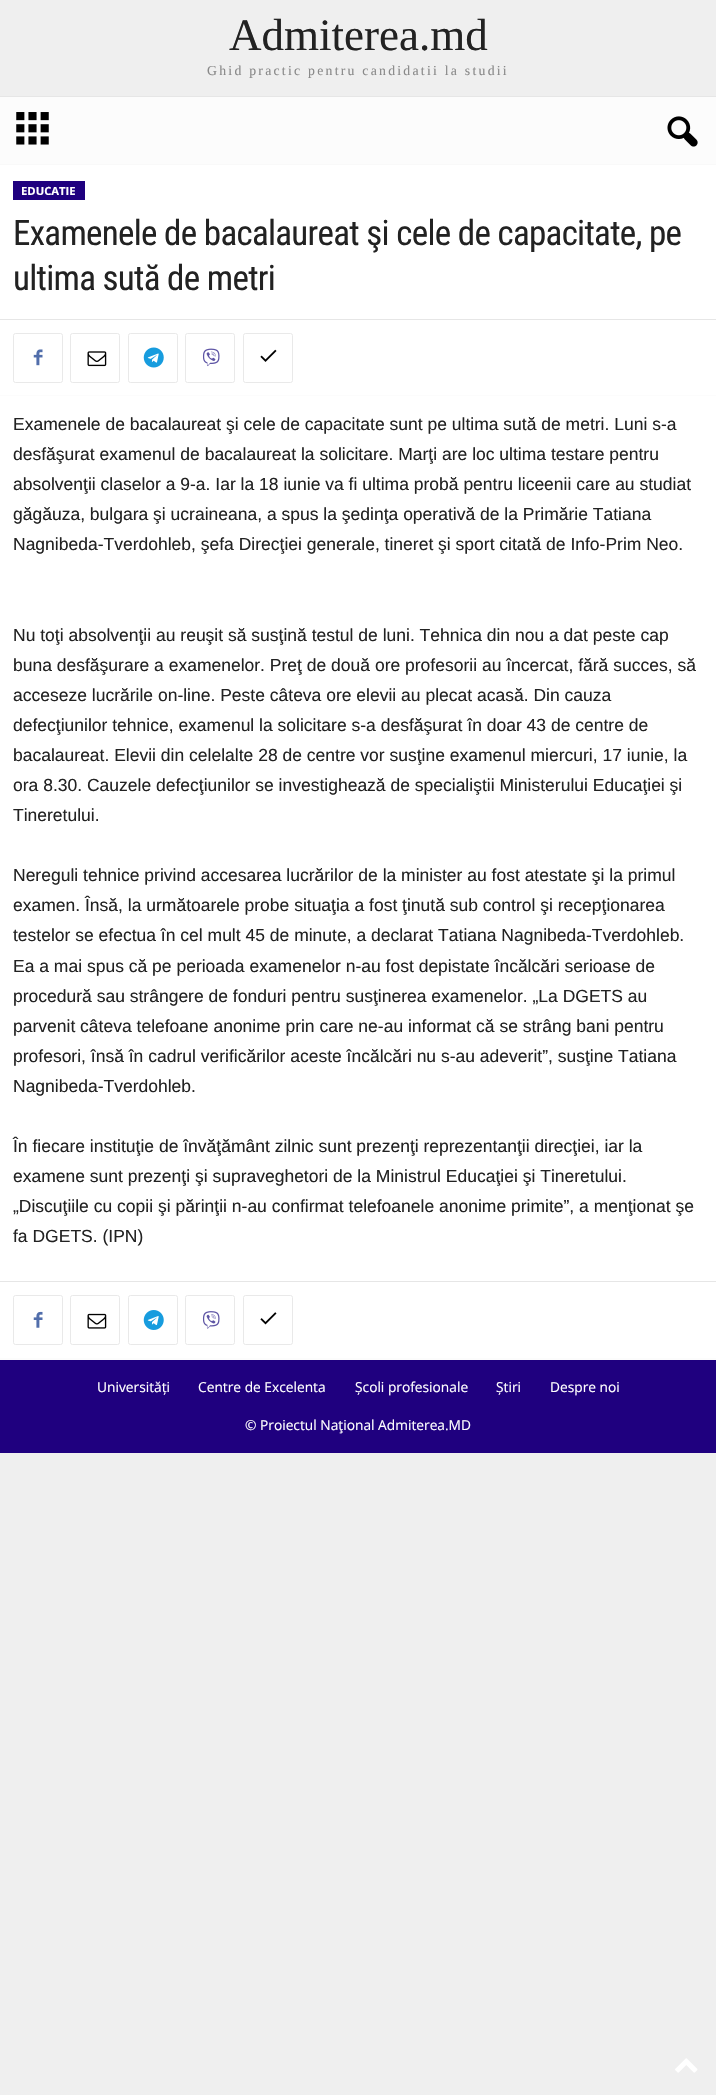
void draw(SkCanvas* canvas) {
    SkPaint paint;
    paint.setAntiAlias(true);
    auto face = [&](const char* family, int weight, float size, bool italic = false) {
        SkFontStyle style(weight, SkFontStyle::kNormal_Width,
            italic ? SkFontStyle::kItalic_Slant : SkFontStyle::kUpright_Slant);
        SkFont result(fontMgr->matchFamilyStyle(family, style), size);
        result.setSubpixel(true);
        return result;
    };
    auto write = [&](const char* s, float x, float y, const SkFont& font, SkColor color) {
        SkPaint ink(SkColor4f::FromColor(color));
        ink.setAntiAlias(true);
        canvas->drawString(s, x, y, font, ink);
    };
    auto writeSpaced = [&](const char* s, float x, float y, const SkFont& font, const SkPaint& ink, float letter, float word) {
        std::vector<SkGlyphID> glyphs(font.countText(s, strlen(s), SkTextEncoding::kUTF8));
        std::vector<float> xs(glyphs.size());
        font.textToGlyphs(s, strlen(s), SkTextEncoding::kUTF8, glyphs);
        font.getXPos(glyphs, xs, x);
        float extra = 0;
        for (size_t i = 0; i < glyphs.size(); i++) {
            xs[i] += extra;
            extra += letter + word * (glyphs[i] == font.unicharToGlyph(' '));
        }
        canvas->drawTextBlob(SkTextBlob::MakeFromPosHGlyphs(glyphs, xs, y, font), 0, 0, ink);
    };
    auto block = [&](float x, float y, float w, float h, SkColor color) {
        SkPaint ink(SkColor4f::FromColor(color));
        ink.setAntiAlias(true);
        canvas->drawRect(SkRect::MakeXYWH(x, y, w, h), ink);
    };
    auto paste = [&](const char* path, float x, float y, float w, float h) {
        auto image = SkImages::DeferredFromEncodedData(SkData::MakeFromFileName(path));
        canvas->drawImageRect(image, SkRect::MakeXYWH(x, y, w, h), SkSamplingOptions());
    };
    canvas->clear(SkColorSetRGB(239, 239, 239));
    auto kFont1 = face("Liberation Serif", 400, 45);
    write("Admiterea.md", 229, 50, kFont1, SkColorSetRGB(34, 34, 34));
    auto kFont2 = face("Liberation Serif", 400, 13.75f);
    paint.setColor(SkColorSetRGB(137, 137, 137));
    writeSpaced("Ghid practic pentru candidatii la studii", 207, 75, kFont2, paint, 2.25f, 0);
    block(0, 97, 716, 67, SkColorSetRGB(252, 252, 252));
    block(0, 96, 716, 1, SkColorSetRGB(230, 230, 230));
    block(0, 164, 716, 1, SkColorSetRGB(249, 249, 249));
    paste("pic1.png", 16, 112, 33, 33);
    paste("pic2.png", 667, 116, 31, 31);
    block(0, 165, 716, 1193, SK_ColorWHITE);
    block(0, 1358, 716, 2, SkColorSetRGB(252, 252, 252));
    block(13, 181, 72, 19, SkColorSetRGB(31, 0, 127));
    auto kFont3 = face("Open Sans", 700, 11.25f);
    write("EDUCATIE", 21, 195, kFont3, SK_ColorWHITE);
    auto kFont4 = face("Roboto Condensed", 400, 35);
    paint.setColor(SkColorSetRGB(34, 34, 34));
    writeSpaced("Examenele de bacalaureat şi cele de capacitate, pe", 13, 245, kFont4, paint, -0.7f, 0);
    writeSpaced("ultima sută de metri", 13, 290, kFont4, paint, -0.7f, 0);
    block(0, 319, 716, 1, SkColorSetRGB(230, 230, 230));
    paint.setStyle(SkPaint::kStroke_Style);
    paint.setStrokeWidth(1);
    paint.setColor(SkColorSetRGB(233, 233, 233));
    canvas->drawRoundRect(SkRect::MakeXYWH(13.5f, 333.5f, 49, 49), 2, 2, paint);
    paste("pic3.png", 33, 349, 10, 17);
    canvas->drawRoundRect(SkRect::MakeXYWH(70.5f, 333.5f, 49, 49), 2, 2, paint);
    paste("pic4.png", 87, 351, 20, 16);
    canvas->drawRoundRect(SkRect::MakeXYWH(128.5f, 333.5f, 49, 49), 2, 2, paint);
    paste("pic5.png", 143, 347, 21, 21);
    canvas->drawRoundRect(SkRect::MakeXYWH(185.5f, 333.5f, 49, 49), 2, 2, paint);
    paste("pic6.png", 202, 348, 18, 19);
    canvas->drawRoundRect(SkRect::MakeXYWH(243.5f, 333.5f, 49, 49), 2, 2, paint);
    paste("pic7.png", 260, 349, 17, 13);
    block(0, 395, 716, 1, SkColorSetRGB(252, 252, 252));
    auto kFont5 = face("Liberation Sans", 400, 17.5f);
    write("Examenele de bacalaureat şi cele de capacitate sunt pe ultima sută de metri. Luni s-a", 13, 430, kFont5, SkColorSetRGB(34, 34, 34));
    write("desfăşurat examenul de bacalaureat la solicitare. Marţi are loc ultima testare pentru", 13, 460, kFont5, SkColorSetRGB(34, 34, 34));
    write("absolvenţii claselor a 9-a. Iar la 18 iunie va fi ultima probă pentru liceenii care au studiat", 13, 490, kFont5, SkColorSetRGB(34, 34, 34));
    write("găgăuza, bulgara şi ucraineana, a spus la şedinţa operativă de la Primărie Tatiana", 13, 520, kFont5, SkColorSetRGB(34, 34, 34));
    write("Nagnibeda-Tverdohleb, şefa Direcţiei generale, tineret şi sport citată de Info-Prim Neo.", 13, 550, kFont5, SkColorSetRGB(34, 34, 34));
    write("Nu toţi absolvenţii au reuşit să susţină testul de luni. Tehnica din nou a dat peste cap", 13, 641, kFont5, SkColorSetRGB(34, 34, 34));
    write("buna desfăşurare a examenelor. Preţ de două ore profesorii au încercat, fără succes, să", 13, 671, kFont5, SkColorSetRGB(34, 34, 34));
    write("acceseze lucrările on-line. Peste câteva ore elevii au plecat acasă. Din cauza", 13, 701, kFont5, SkColorSetRGB(34, 34, 34));
    write("defecţiunilor tehnice, examenul la solicitare s-a desfăşurat în doar 43 de centre de", 13, 731, kFont5, SkColorSetRGB(34, 34, 34));
    write("bacalaureat. Elevii din celelalte 28 de centre vor susţine examenul miercuri, 17 iunie, la", 13, 761, kFont5, SkColorSetRGB(34, 34, 34));
    write("ora 8.30. Cauzele defecţiunilor se investighează de specialiştii Ministerului Educaţiei şi", 13, 791, kFont5, SkColorSetRGB(34, 34, 34));
    write("Tineretului.", 13, 821, kFont5, SkColorSetRGB(34, 34, 34));
    write("Nereguli tehnice privind accesarea lucrărilor de la minister au fost atestate şi la primul", 13, 881, kFont5, SkColorSetRGB(34, 34, 34));
    write("examen. Însă, la următoarele probe situaţia a fost ţinută sub control şi recepţionarea", 13, 911, kFont5, SkColorSetRGB(34, 34, 34));
    write("testelor se efectua în cel mult 45 de minute, a declarat Tatiana Nagnibeda-Tverdohleb.", 13, 941, kFont5, SkColorSetRGB(34, 34, 34));
    write("Ea a mai spus că pe perioada examenelor n-au fost depistate încălcări serioase de", 13, 972, kFont5, SkColorSetRGB(34, 34, 34));
    write("procedură sau strângere de fonduri pentru susţinerea examenelor. „La DGETS au", 13, 1002, kFont5, SkColorSetRGB(34, 34, 34));
    write("parvenit câteva telefoane anonime prin care ne-au informat că se strâng bani pentru", 13, 1032, kFont5, SkColorSetRGB(34, 34, 34));
    write("profesori, însă în cadrul verificărilor aceste încălcări nu s-au adeverit”, susţine Tatiana", 13, 1062, kFont5, SkColorSetRGB(34, 34, 34));
    write("Nagnibeda-Tverdohleb.", 13, 1092, kFont5, SkColorSetRGB(34, 34, 34));
    write("În fiecare instituţie de învăţământ zilnic sunt prezenţi reprezentanţii direcţiei, iar la", 13, 1152, kFont5, SkColorSetRGB(34, 34, 34));
    write("examene sunt prezenţi şi supraveghetori de la Ministrul Educaţiei şi Tineretului.", 13, 1182, kFont5, SkColorSetRGB(34, 34, 34));
    write("„Discuţiile cu copii şi părinţii n-au confirmat telefoanele anonime primite”, a menţionat şe", 13, 1212, kFont5, SkColorSetRGB(34, 34, 34));
    write("fa DGETS. (IPN)", 13, 1242, kFont5, SkColorSetRGB(34, 34, 34));
    block(0, 1281, 716, 1, SkColorSetRGB(230, 230, 230));
    canvas->drawRoundRect(SkRect::MakeXYWH(13.5f, 1295.5f, 49, 49), 2, 2, paint);
    paste("pic8.png", 33, 1311, 10, 17);
    canvas->drawRoundRect(SkRect::MakeXYWH(70.5f, 1295.5f, 49, 49), 2, 2, paint);
    paste("pic9.png", 87, 1313, 20, 16);
    canvas->drawRoundRect(SkRect::MakeXYWH(128.5f, 1295.5f, 49, 49), 2, 2, paint);
    paste("pic10.png", 143, 1310, 21, 20);
    canvas->drawRoundRect(SkRect::MakeXYWH(185.5f, 1295.5f, 49, 49), 2, 2, paint);
    paste("pic11.png", 202, 1311, 18, 18);
    canvas->drawRoundRect(SkRect::MakeXYWH(243.5f, 1295.5f, 49, 49), 2, 2, paint);
    paste("pic12.png", 260, 1312, 17, 13);
    block(0, 1360, 716, 93, SkColorSetRGB(31, 0, 127));
    auto kFont6 = face("Open Sans", 400, 13.75f);
    write("Universități", 97, 1392, kFont6, SK_ColorWHITE);
    write("Centre de Excelenta", 198, 1392, kFont6, SK_ColorWHITE);
    write("Școli profesionale", 355, 1392, kFont6, SK_ColorWHITE);
    write("Știri", 496, 1392, kFont6, SK_ColorWHITE);
    write("Despre noi", 550, 1392, kFont6, SK_ColorWHITE);
    write("© Proiectul Naţional Admiterea.MD", 245, 1430, kFont6, SK_ColorWHITE);
    paste("pic13.png", 675, 2058, 23, 15);
}
